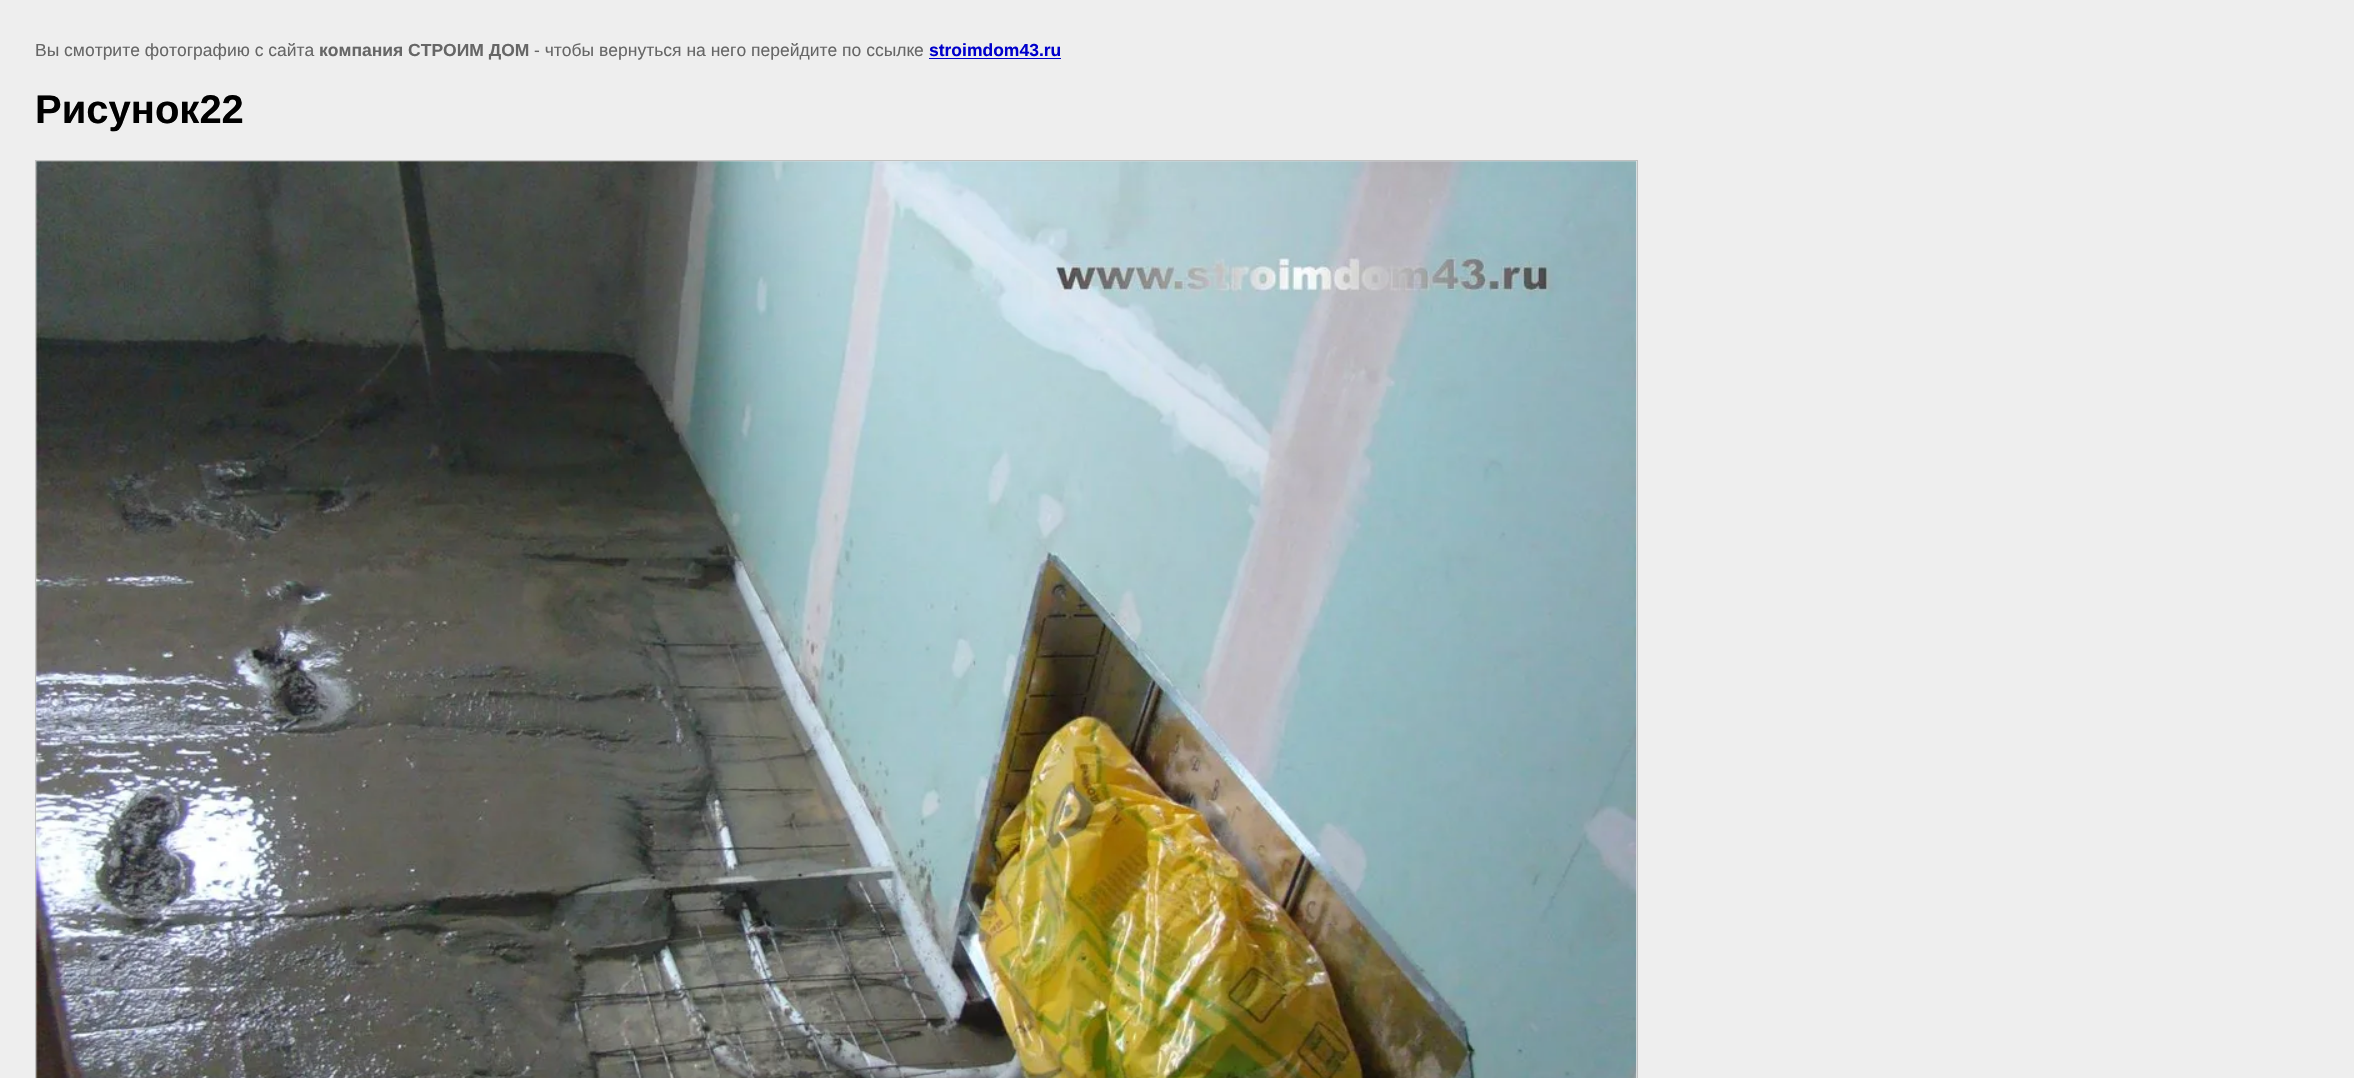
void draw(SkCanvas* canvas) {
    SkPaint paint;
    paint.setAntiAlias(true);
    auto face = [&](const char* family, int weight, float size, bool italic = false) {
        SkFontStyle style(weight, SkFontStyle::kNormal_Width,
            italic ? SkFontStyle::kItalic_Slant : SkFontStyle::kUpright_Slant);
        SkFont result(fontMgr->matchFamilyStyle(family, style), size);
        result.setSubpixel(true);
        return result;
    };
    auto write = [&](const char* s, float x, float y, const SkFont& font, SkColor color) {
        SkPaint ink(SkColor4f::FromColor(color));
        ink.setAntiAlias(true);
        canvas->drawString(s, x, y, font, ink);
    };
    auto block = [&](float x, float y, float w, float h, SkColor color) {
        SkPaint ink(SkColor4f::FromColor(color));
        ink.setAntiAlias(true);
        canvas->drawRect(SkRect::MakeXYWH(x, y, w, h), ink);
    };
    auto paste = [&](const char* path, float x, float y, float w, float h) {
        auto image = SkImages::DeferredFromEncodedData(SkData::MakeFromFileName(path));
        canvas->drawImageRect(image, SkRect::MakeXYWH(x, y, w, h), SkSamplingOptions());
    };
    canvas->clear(SkColorSetRGB(238, 238, 238));
    auto kFont1 = face("Liberation Sans", 400, 17.5f);
    write("Вы смотрите фотографию с сайта", 35, 56, kFont1, SkColorSetRGB(102, 102, 102));
    auto kFont2 = face("Liberation Sans", 700, 17.5f);
    write("компания СТРОИМ ДОМ", 319, 56, kFont2, SkColorSetRGB(102, 102, 102));
    write("- чтобы вернуться на него перейдите по ссылке", 534, 56, kFont1, SkColorSetRGB(102, 102, 102));
    write("stroimdom43.ru", 929, 56, kFont2, SkColorSetRGB(0, 0, 204));
    block(929, 58, 132, 1, SkColorSetRGB(0, 0, 204));
    auto kFont3 = face("Liberation Sans", 700, 40);
    write("Рисунок22", 35, 123, kFont3, SK_ColorBLACK);
    paint.setStyle(SkPaint::kStroke_Style);
    paint.setStrokeWidth(1);
    paint.setColor(SkColorSetRGB(192, 192, 192));
    canvas->drawRect(SkRect::MakeXYWH(35.5f, 160.5f, 1602, 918), paint);
    paste("pic1.png", 36, 161, 1601, 917);
}
